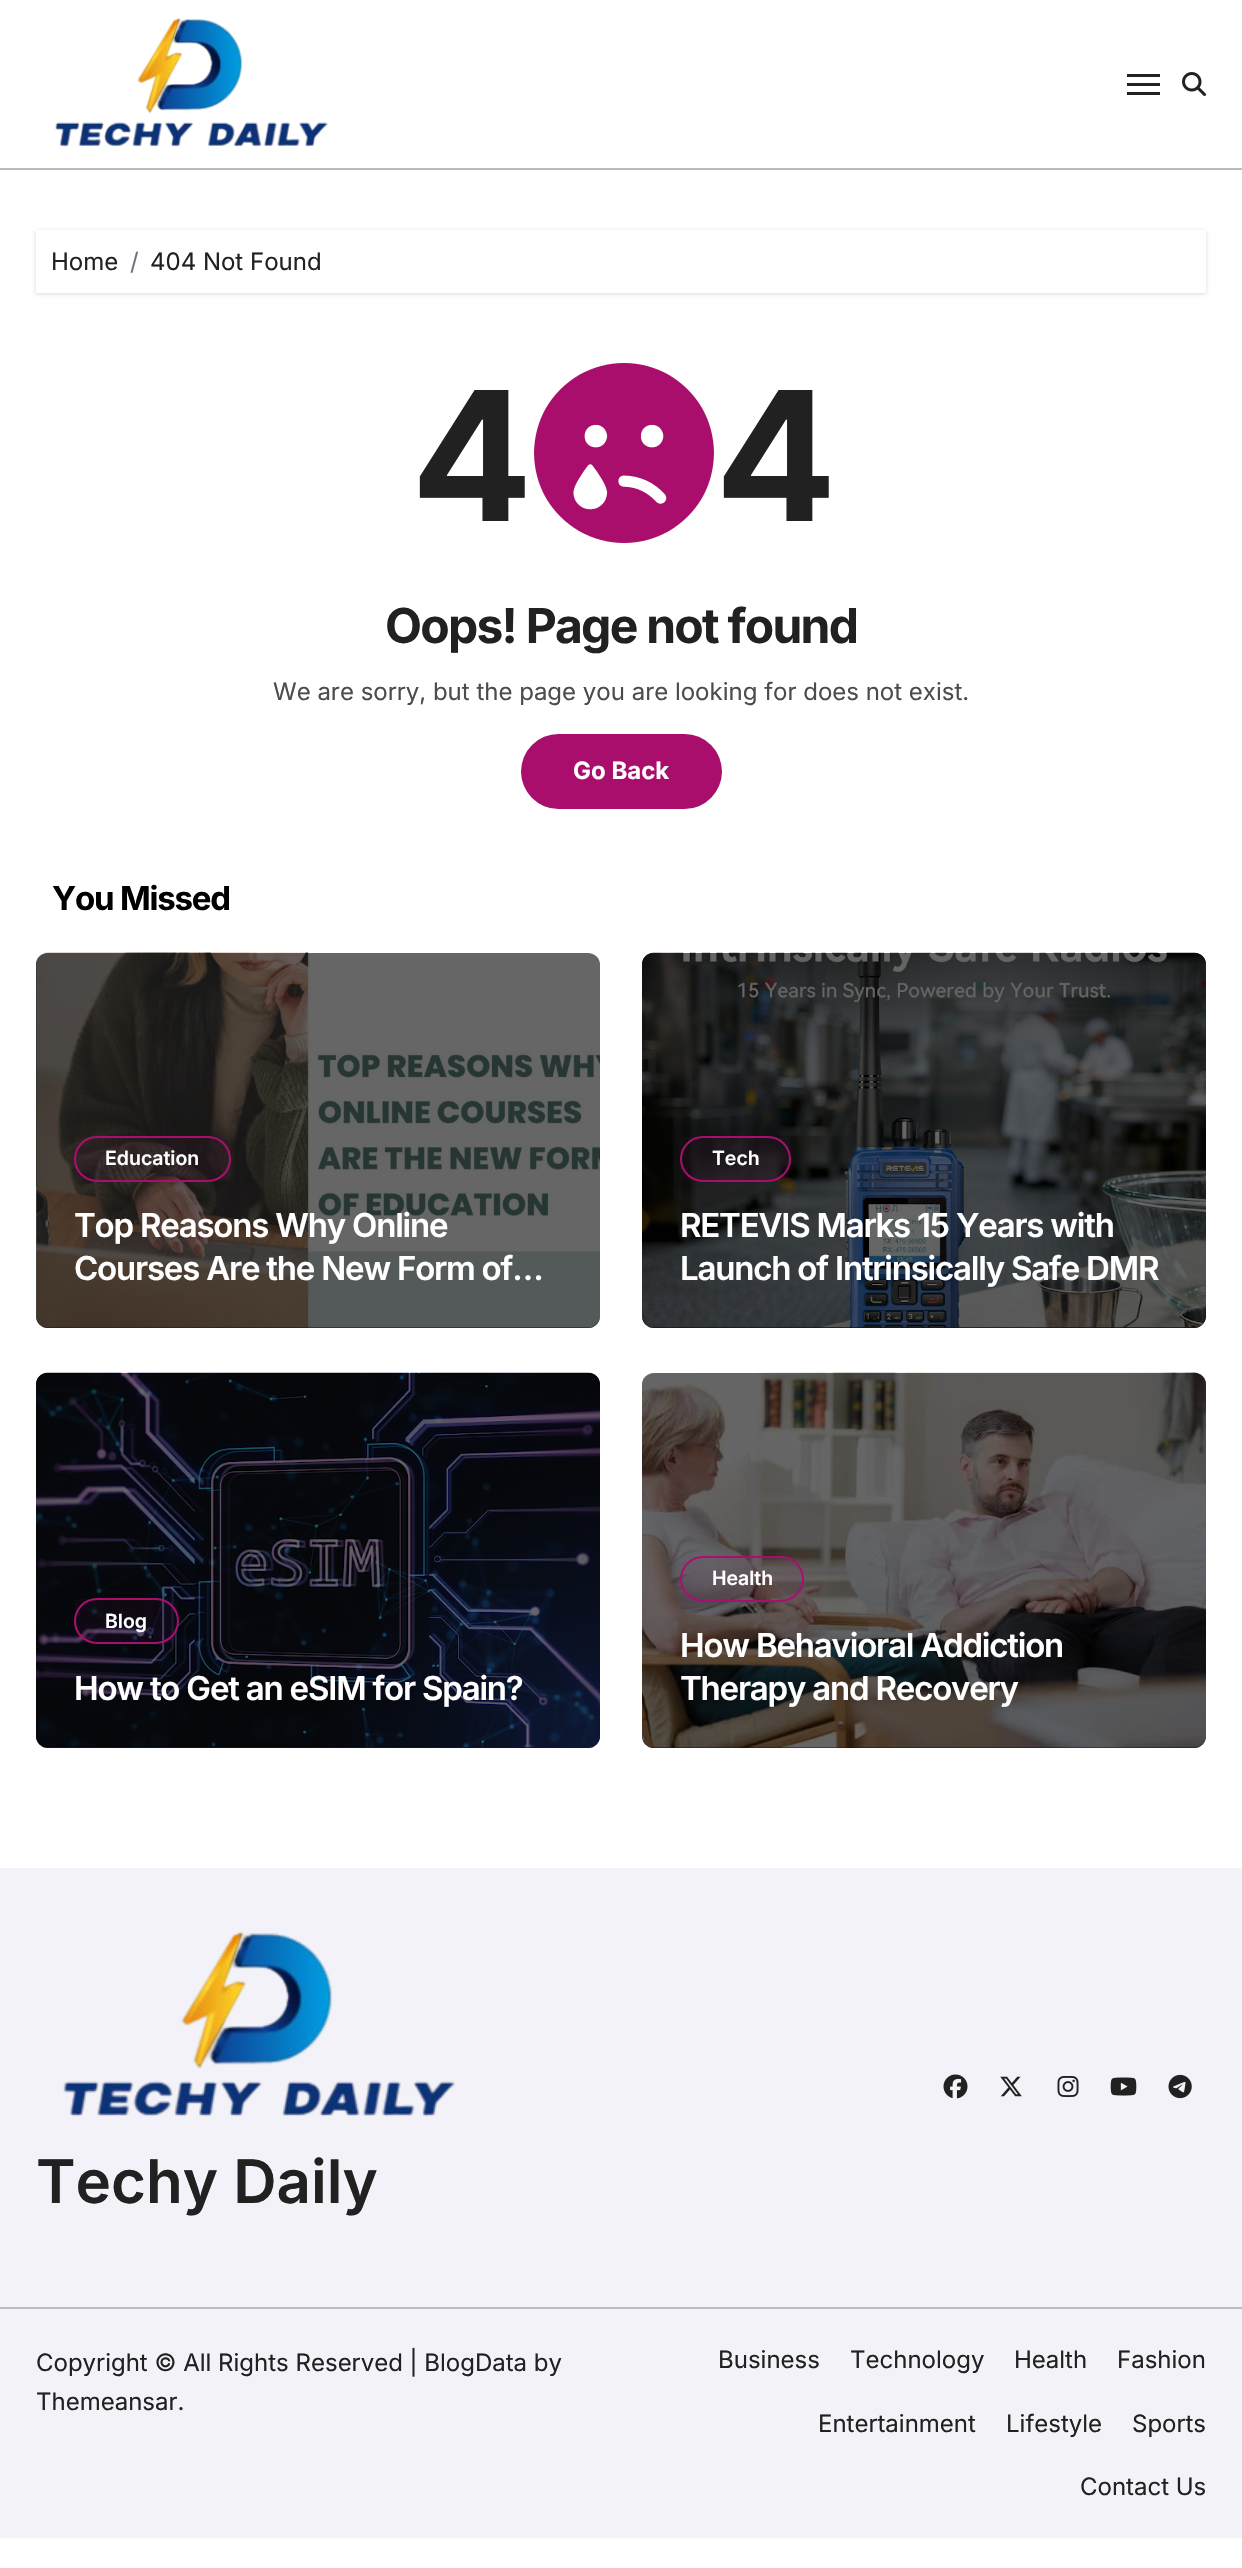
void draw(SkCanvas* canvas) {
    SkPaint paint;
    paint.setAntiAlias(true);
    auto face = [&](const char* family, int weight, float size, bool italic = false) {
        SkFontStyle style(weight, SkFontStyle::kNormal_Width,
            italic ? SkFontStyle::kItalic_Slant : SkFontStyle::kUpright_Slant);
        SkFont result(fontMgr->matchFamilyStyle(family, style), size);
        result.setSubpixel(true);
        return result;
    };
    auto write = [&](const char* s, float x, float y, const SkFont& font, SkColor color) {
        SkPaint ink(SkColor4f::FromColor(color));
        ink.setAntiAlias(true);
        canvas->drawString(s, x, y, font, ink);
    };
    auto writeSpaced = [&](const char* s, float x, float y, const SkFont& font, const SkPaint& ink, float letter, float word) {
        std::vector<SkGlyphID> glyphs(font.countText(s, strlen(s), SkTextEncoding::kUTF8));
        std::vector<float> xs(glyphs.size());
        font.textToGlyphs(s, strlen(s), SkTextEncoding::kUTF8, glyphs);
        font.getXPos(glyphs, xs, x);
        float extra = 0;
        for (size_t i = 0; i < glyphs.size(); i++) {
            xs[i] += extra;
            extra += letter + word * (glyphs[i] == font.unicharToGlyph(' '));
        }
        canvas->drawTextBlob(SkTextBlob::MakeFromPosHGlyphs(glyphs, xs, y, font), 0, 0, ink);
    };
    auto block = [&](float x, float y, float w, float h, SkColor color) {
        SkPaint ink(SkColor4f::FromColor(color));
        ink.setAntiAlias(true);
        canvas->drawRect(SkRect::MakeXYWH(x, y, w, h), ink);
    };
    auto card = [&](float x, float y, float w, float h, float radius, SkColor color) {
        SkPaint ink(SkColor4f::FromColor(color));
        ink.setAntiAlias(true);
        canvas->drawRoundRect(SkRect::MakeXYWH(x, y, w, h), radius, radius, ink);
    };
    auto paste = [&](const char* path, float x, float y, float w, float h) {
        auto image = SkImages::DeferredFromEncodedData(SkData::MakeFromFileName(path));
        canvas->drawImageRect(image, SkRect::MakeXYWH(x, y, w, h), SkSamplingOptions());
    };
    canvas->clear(SK_ColorWHITE);
    block(0, 168, 1242, 2, SkColorSetRGB(187, 187, 187));
    paste("pic1.png", 55, 18, 273, 129);
    block(1127, 74, 33, 3, SkColorSetRGB(33, 33, 33));
    block(1127, 83, 33, 3, SkColorSetRGB(33, 33, 33));
    block(1127, 92, 33, 3, SkColorSetRGB(33, 33, 33));
    paste("pic2.png", 1182, 72, 24, 24);
    canvas->save();
    canvas->clipPath(SkPathBuilder(SkPathFillType::kEvenOdd).moveTo(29, 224).lineTo(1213, 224).lineTo(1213, 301).lineTo(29, 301).close().moveTo(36, 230).lineTo(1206, 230).lineTo(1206, 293).lineTo(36, 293).close().detach(), true);
    paint.setColor(SkColorSetARGB(38, 0, 0, 0));
    paint.setMaskFilter(SkMaskFilter::MakeBlur(kNormal_SkBlurStyle, 2));
    canvas->drawRect(SkRect::MakeXYWH(36, 231, 1170, 63), paint);
    paint.setMaskFilter(nullptr);
    canvas->restore();
    auto kFont1 = face("Inter", 400, 24);
    write("Home", 51, 270, kFont1, SkColorSetRGB(33, 33, 33));
    write("/", 130, 270, kFont1, SkColorSetRGB(108, 117, 125));
    write("404 Not Found", 150, 270, kFont1, SkColorSetRGB(33, 33, 33));
    auto kFont2 = face("Inter", 700, 180);
    paint.setColor(SkColorSetRGB(33, 33, 33));
    writeSpaced("4", 411, 521, kFont2, paint, -6, 0);
    paste("pic3.png", 534, 363, 180, 180);
    writeSpaced("4", 715, 521, kFont2, paint, -6, 0);
    auto kFont3 = face("Inter", 700, 48);
    writeSpaced("Oops! Page not found", 385, 643, kFont3, paint, -1.75f, 0);
    write("We are sorry, but the page you are looking for does not exist.", 273, 700, kFont1, SkColorSetRGB(76, 76, 76));
    card(521, 734, 201, 75, 37.5f, SkColorSetRGB(169, 14, 109));
    auto kFont4 = face("Inter", 700, 24);
    write("Go Back", 573, 779, kFont4, SK_ColorWHITE);
    auto kFont5 = face("Inter", 700, 33);
    paint.setColor(SK_ColorBLACK);
    writeSpaced("You Missed", 52, 910, kFont5, paint, -1.2f, 0);
    card(36, 953, 564, 375, 12, SkColorSetRGB(51, 51, 51));
    paste("pic4.png", 36, 952, 564, 376);
    card(36, 953, 564, 375, 12, SkColorSetARGB(153, 0, 0, 0));
    paint.setStyle(SkPaint::kStroke_Style);
    paint.setStrokeWidth(2);
    paint.setColor(SkColorSetRGB(169, 14, 109));
    canvas->drawRoundRect(SkRect::MakeXYWH(75, 1137, 155, 44), 22, 22, paint);
    block(75, 1137, 155, 44, SkColorSetARGB(13, 169, 14, 109));
    auto kFont6 = face("Inter", 600, 19.5f);
    write("Education", 105, 1165, kFont6, SK_ColorWHITE);
    auto kFont7 = face("Inter", 600, 33);
    paint.setStyle(SkPaint::kFill_Style);
    paint.setColor(SK_ColorWHITE);
    writeSpaced("Top Reasons Why Online", 74, 1237, kFont7, paint, -1.2f, 0);
    writeSpaced("Courses Are the New Form of…", 74, 1280, kFont7, paint, -1.2f, 0);
    card(642, 953, 564, 375, 12, SkColorSetRGB(51, 51, 51));
    paste("pic5.png", 642, 952, 564, 376);
    card(642, 953, 564, 375, 12, SkColorSetARGB(153, 0, 0, 0));
    paint.setStyle(SkPaint::kStroke_Style);
    paint.setColor(SkColorSetRGB(169, 14, 109));
    canvas->drawRoundRect(SkRect::MakeXYWH(681, 1137, 109, 44), 22, 22, paint);
    block(681, 1137, 108, 44, SkColorSetARGB(13, 169, 14, 109));
    write("Tech", 712, 1165, kFont6, SK_ColorWHITE);
    paint.setStyle(SkPaint::kFill_Style);
    paint.setColor(SK_ColorWHITE);
    writeSpaced("RETEVIS Marks 15 Years with", 680, 1237, kFont7, paint, -1.2f, 0);
    writeSpaced("Launch of Intrinsically Safe DMR", 680, 1280, kFont7, paint, -1.2f, 0);
    card(36, 1373, 564, 375, 12, SkColorSetRGB(51, 51, 51));
    paste("pic6.png", 36, 1372, 564, 376);
    card(36, 1373, 564, 375, 12, SkColorSetARGB(153, 0, 0, 0));
    paint.setStyle(SkPaint::kStroke_Style);
    paint.setColor(SkColorSetRGB(169, 14, 109));
    canvas->drawRoundRect(SkRect::MakeXYWH(75, 1599, 103, 44), 22, 22, paint);
    block(75, 1599, 102, 44, SkColorSetARGB(13, 169, 14, 109));
    write("Blog", 105, 1628, kFont6, SK_ColorWHITE);
    paint.setStyle(SkPaint::kFill_Style);
    paint.setColor(SK_ColorWHITE);
    writeSpaced("How to Get an eSIM for Spain?", 74, 1700, kFont7, paint, -1.2f, 0);
    card(642, 1373, 564, 375, 12, SkColorSetRGB(51, 51, 51));
    paste("pic7.png", 642, 1372, 564, 376);
    card(642, 1373, 564, 375, 12, SkColorSetARGB(153, 0, 0, 0));
    paint.setStyle(SkPaint::kStroke_Style);
    paint.setColor(SkColorSetRGB(169, 14, 109));
    canvas->drawRoundRect(SkRect::MakeXYWH(681, 1557, 122, 44), 22, 22, paint);
    block(681, 1557, 122, 44, SkColorSetARGB(13, 169, 14, 109));
    write("Health", 712, 1585, kFont6, SK_ColorWHITE);
    paint.setStyle(SkPaint::kFill_Style);
    paint.setColor(SK_ColorWHITE);
    writeSpaced("How Behavioral Addiction", 680, 1657, kFont7, paint, -1.2f, 0);
    writeSpaced("Therapy and Recovery", 680, 1700, kFont7, paint, -1.2f, 0);
    block(0, 1868, 1242, 670, SkColorSetRGB(242, 242, 248));
    paste("pic8.png", 943, 2074, 25, 25);
    paste("pic9.png", 1000, 2076, 22, 21);
    paste("pic10.png", 1057, 2076, 22, 21);
    paste("pic11.png", 1110, 2077, 27, 19);
    paste("pic12.png", 1168, 2074, 24, 25);
    paste("pic13.png", 63, 1931, 392, 186);
    auto kFont8 = face("Inter", 600, 60);
    write("Techy Daily", 36, 2203, kFont8, SkColorSetRGB(33, 33, 33));
    block(0, 2307, 1242, 2, SkColorSetRGB(189, 189, 189));
    write("Copyright © All Rights Reserved | BlogData by", 36, 2371, kFont1, SkColorSetRGB(33, 33, 33));
    write("Themeansar.", 36, 2410, kFont1, SkColorSetRGB(33, 33, 33));
    write("Business", 718, 2368, kFont1, SkColorSetRGB(33, 33, 33));
    write("Technology", 850, 2368, kFont1, SkColorSetRGB(33, 33, 33));
    write("Health", 1014, 2368, kFont1, SkColorSetRGB(33, 33, 33));
    write("Fashion", 1117, 2368, kFont1, SkColorSetRGB(33, 33, 33));
    write("Entertainment", 818, 2432, kFont1, SkColorSetRGB(33, 33, 33));
    write("Lifestyle", 1006, 2432, kFont1, SkColorSetRGB(33, 33, 33));
    write("Sports", 1132, 2432, kFont1, SkColorSetRGB(33, 33, 33));
    write("Contact Us", 1080, 2495, kFont1, SkColorSetRGB(33, 33, 33));
}
